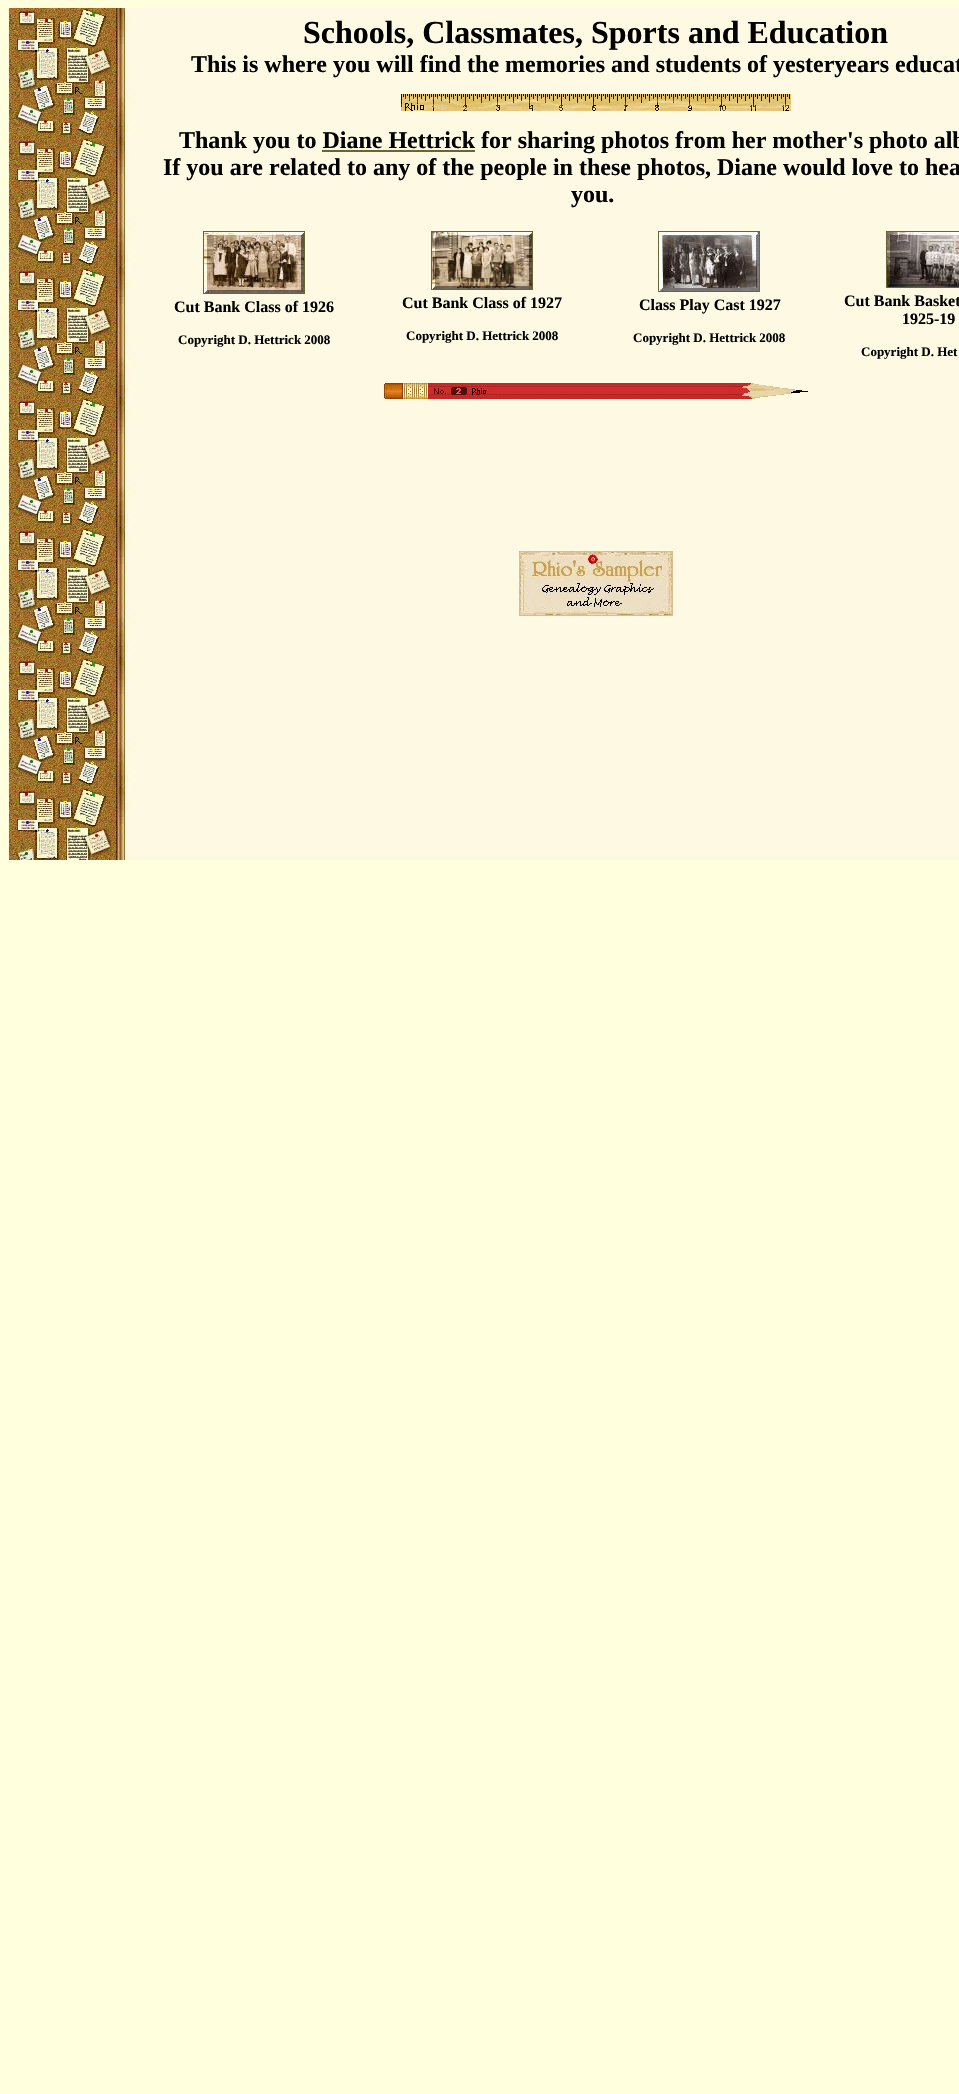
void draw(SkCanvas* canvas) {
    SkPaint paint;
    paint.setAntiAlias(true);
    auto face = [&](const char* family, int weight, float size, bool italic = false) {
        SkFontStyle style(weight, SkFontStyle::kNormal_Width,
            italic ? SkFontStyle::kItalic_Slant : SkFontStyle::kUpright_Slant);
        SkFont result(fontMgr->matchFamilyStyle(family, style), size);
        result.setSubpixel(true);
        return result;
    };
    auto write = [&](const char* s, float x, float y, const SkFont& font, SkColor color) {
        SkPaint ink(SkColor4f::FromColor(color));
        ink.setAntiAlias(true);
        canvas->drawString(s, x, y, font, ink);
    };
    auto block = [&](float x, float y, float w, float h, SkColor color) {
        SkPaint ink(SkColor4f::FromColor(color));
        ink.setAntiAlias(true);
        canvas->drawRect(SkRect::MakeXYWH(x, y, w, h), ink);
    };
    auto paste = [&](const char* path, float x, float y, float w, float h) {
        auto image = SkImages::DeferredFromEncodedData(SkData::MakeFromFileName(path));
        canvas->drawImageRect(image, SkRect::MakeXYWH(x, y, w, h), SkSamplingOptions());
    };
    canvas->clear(SkColorSetRGB(255, 255, 221));
    paste("pic1.png", 8, 8, 951, 852);
    auto kFont1 = face("Liberation Serif", 700, 32);
    write("Schools, Classmates, Sports and Education", 303, 43, kFont1, SK_ColorBLACK);
    auto kFont2 = face("Liberation Serif", 700, 24);
    write("This is where you will find the memories and students of yesteryears educat", 191, 72, kFont2, SK_ColorBLACK);
    paste("pic2.png", 401, 94, 390, 17);
    write("Thank you to Diane Hettrick for sharing photos from her mother's photo alb", 179, 148, kFont2, SK_ColorBLACK);
    block(322, 150, 153, 2, SkColorSetRGB(103, 103, 52));
    write("If you are related to any of the people in these photos, Diane would love to hea", 163, 175, kFont2, SK_ColorBLACK);
    write("you.", 571, 202, kFont2, SK_ColorBLACK);
    paint.setStyle(SkPaint::kStroke_Style);
    paint.setStrokeWidth(1);
    paint.setColor(SkColorSetRGB(103, 103, 52));
    canvas->drawRect(SkRect::MakeXYWH(203.5f, 231.5f, 101, 62), paint);
    paste("pic3.png", 204, 232, 100, 61);
    auto kFont3 = face("Liberation Serif", 700, 16);
    write("Cut Bank Class of 1926", 174, 312, kFont3, SK_ColorBLACK);
    auto kFont4 = face("Liberation Serif", 700, 13);
    write("Copyright D. Hettrick 2008", 178, 344, kFont4, SK_ColorBLACK);
    canvas->drawRect(SkRect::MakeXYWH(431.5f, 231.5f, 101, 58), paint);
    paste("pic4.png", 432, 232, 100, 57);
    write("Cut Bank Class of 1927", 402, 308, kFont3, SK_ColorBLACK);
    write("Copyright D. Hettrick 2008", 406, 340, kFont4, SK_ColorBLACK);
    canvas->drawRect(SkRect::MakeXYWH(658.5f, 231.5f, 101, 60), paint);
    paste("pic5.png", 659, 232, 100, 59);
    write("Class Play Cast 1927", 639, 310, kFont3, SK_ColorBLACK);
    write("Copyright D. Hettrick 2008", 633, 342, kFont4, SK_ColorBLACK);
    canvas->drawRect(SkRect::MakeXYWH(886.5f, 231.5f, 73, 56), paint);
    paste("pic6.png", 887, 232, 72, 55);
    write("Cut Bank Basket", 844, 306, kFont3, SK_ColorBLACK);
    write("1925-19", 902, 324, kFont3, SK_ColorBLACK);
    write("Copyright D. Het", 861, 356, kFont4, SK_ColorBLACK);
    paste("pic7.png", 384, 383, 424, 16);
    paste("pic8.png", 519, 551, 154, 65);
}
